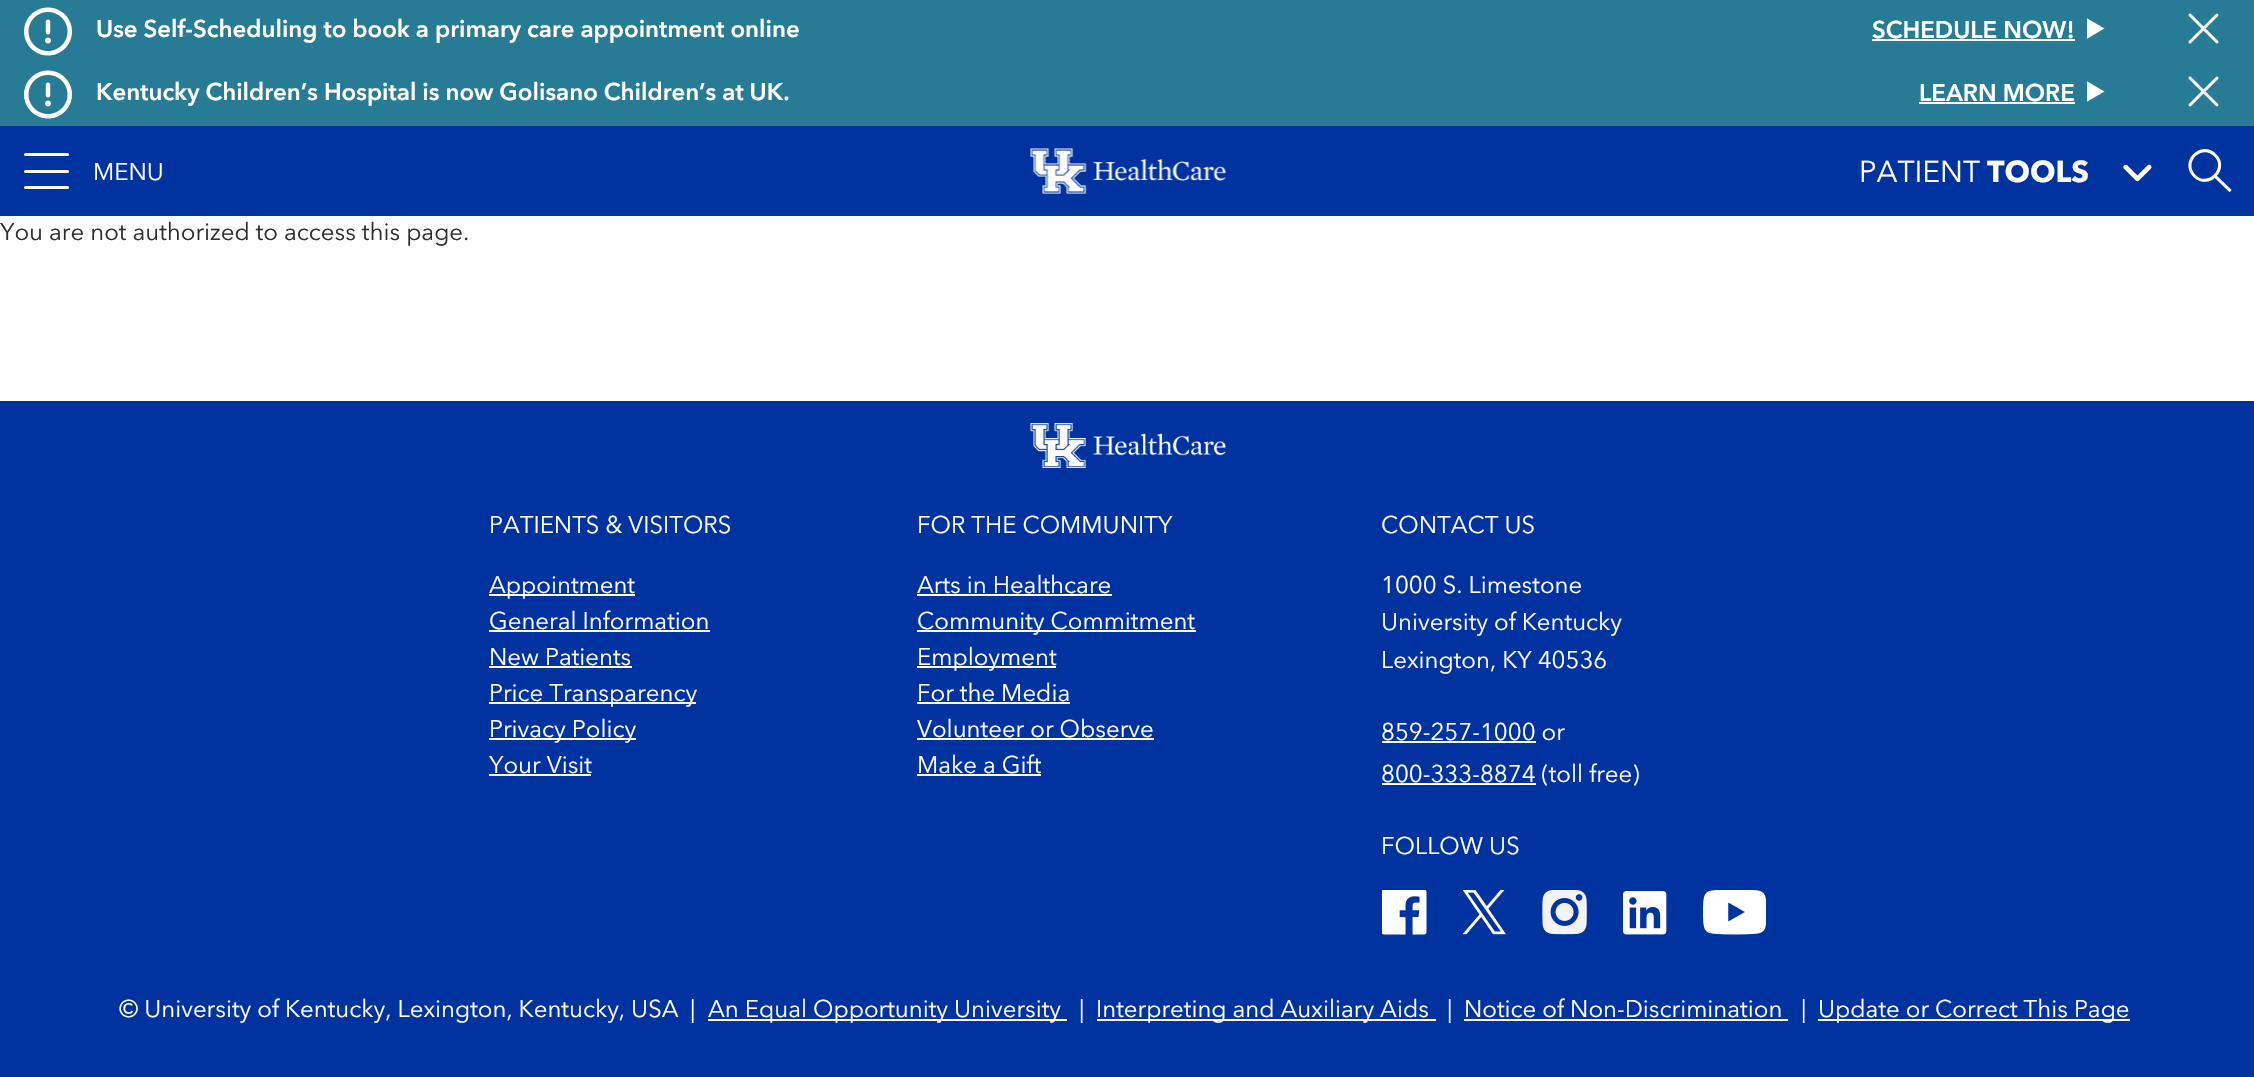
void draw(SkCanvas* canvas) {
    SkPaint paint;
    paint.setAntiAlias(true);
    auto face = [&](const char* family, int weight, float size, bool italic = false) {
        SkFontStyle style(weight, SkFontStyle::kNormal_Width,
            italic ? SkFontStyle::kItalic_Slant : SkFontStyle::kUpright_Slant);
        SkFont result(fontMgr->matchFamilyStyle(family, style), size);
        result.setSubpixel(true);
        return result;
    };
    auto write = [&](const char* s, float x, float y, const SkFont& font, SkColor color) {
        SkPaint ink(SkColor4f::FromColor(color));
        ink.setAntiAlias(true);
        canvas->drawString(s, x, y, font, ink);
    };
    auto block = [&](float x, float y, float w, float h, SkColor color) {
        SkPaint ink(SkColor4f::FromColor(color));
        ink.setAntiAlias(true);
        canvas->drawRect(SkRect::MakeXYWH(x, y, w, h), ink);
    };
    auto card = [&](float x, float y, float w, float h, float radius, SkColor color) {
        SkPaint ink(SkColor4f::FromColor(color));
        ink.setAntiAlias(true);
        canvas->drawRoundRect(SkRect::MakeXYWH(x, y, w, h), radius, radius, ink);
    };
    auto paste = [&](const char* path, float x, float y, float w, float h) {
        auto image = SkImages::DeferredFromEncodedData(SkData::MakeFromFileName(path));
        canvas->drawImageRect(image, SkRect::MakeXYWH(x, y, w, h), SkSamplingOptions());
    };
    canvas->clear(SK_ColorWHITE);
    block(0, 0, 2254, 126, SkColorSetRGB(39, 123, 148));
    paste("pic1.png", 24, 7, 48, 49);
    auto kFont1 = face("Avenir Next", 600, 24);
    write("Use Self-Scheduling to book a primary care appointment online", 96, 37, kFont1, SK_ColorWHITE);
    write("SCHEDULE NOW!", 1872, 38, kFont1, SK_ColorWHITE);
    block(1872, 39, 203, 2, SK_ColorWHITE);
    canvas->save();
    canvas->clipRect(SkRect::MakeXYWH(2087, 18, 18, 21));
    paint.setColor(SK_ColorWHITE);
    canvas->drawPath(SkPathBuilder().moveTo(2104.5f, 28.5f).lineTo(2086.5f, 39).lineTo(2086.5f, 18).close().detach(), paint);
    canvas->restore();
    paste("pic2.png", 2188, 13, 31, 31);
    paste("pic1.png", 24, 70, 48, 49);
    write("Kentucky Children’s Hospital is now Golisano Children’s at UK.", 96, 100, kFont1, SK_ColorWHITE);
    write("LEARN MORE", 1919, 101, kFont1, SK_ColorWHITE);
    block(1919, 102, 156, 2, SK_ColorWHITE);
    canvas->save();
    canvas->clipRect(SkRect::MakeXYWH(2087, 81, 18, 21));
    canvas->drawPath(SkPathBuilder().moveTo(2104.5f, 91.5f).lineTo(2086.5f, 102).lineTo(2086.5f, 81).close().detach(), paint);
    canvas->restore();
    paste("pic2.png", 2188, 76, 31, 31);
    block(0, 126, 2254, 90, SkColorSetRGB(0, 51, 160));
    card(24, 153, 45, 3, 1.5f, SK_ColorWHITE);
    card(24, 170, 45, 3, 1.5f, SK_ColorWHITE);
    card(24, 186, 45, 3, 1.5f, SK_ColorWHITE);
    auto kFont2 = face("Avenir Next", 400, 24);
    write("MENU", 93, 180, kFont2, SK_ColorWHITE);
    paste("pic3.png", 1030, 148, 196, 46);
    auto kFont3 = face("Avenir Next", 400, 30);
    write("PATIENT", 1859, 182, kFont3, SK_ColorWHITE);
    auto kFont4 = face("Avenir Next", 700, 30);
    write("TOOLS", 1987, 182, kFont4, SK_ColorWHITE);
    paste("pic4.png", 2123, 164, 29, 18);
    paint.setStyle(SkPaint::kStroke_Style);
    paint.setStrokeWidth(3.1f);
    canvas->drawPath(SkPathBuilder().moveTo(2215, 155).cubicTo(2229, 168.5f, 2208, 189.5f, 2194.5f, 176).cubicTo(2180.5f, 162, 2201.5f, 141.5f, 2215, 155).close().detach(), paint);
    paint.setStrokeCap(SkPaint::kSquare_Cap);
    canvas->drawPath(SkPathBuilder().moveTo(2215, 176).lineTo(2229.5f, 190).detach(), paint);
    write("You are not authorized to access this page.", 0, 240, kFont2, SkColorSetRGB(46, 46, 46));
    block(0, 401, 2254, 676, SkColorSetRGB(0, 51, 160));
    paste("pic5.png", 1030, 423, 196, 45);
    write("PATIENTS & VISITORS", 489, 533, kFont2, SK_ColorWHITE);
    block(489, 594, 146, 2, SK_ColorWHITE);
    write("Appointment", 489, 593, kFont2, SK_ColorWHITE);
    write("General Information", 489, 629, kFont2, SK_ColorWHITE);
    block(489, 630, 221, 2, SK_ColorWHITE);
    write("New Patients", 489, 665, kFont2, SK_ColorWHITE);
    block(489, 666, 143, 2, SK_ColorWHITE);
    block(489, 702, 207, 2, SK_ColorWHITE);
    write("Price Transparency", 489, 701, kFont2, SK_ColorWHITE);
    block(489, 738, 147, 2, SK_ColorWHITE);
    write("Privacy Policy", 489, 737, kFont2, SK_ColorWHITE);
    write("Your Visit", 489, 773, kFont2, SK_ColorWHITE);
    block(489, 774, 102, 2, SK_ColorWHITE);
    write("FOR THE COMMUNITY", 917, 533, kFont2, SK_ColorWHITE);
    write("Arts in Healthcare", 917, 593, kFont2, SK_ColorWHITE);
    block(917, 594, 195, 2, SK_ColorWHITE);
    block(917, 630, 279, 2, SK_ColorWHITE);
    write("Community Commitment", 917, 629, kFont2, SK_ColorWHITE);
    block(917, 666, 139, 2, SK_ColorWHITE);
    write("Employment", 917, 665, kFont2, SK_ColorWHITE);
    write("For the Media", 917, 701, kFont2, SK_ColorWHITE);
    block(917, 702, 153, 2, SK_ColorWHITE);
    write("Volunteer or Observe", 917, 737, kFont2, SK_ColorWHITE);
    block(917, 738, 237, 2, SK_ColorWHITE);
    write("Make a Gift", 917, 773, kFont2, SK_ColorWHITE);
    block(917, 774, 124, 2, SK_ColorWHITE);
    write("CONTACT US", 1381, 533, kFont2, SK_ColorWHITE);
    write("1000 S. Limestone", 1381, 593, kFont2, SK_ColorWHITE);
    write("University of Kentucky", 1381, 630, kFont2, SK_ColorWHITE);
    write("Lexington, KY 40536", 1381, 668, kFont2, SK_ColorWHITE);
    write("859-257-1000 or", 1381, 740, kFont2, SK_ColorWHITE);
    block(1382, 741, 154, 2, SK_ColorWHITE);
    block(1382, 783, 154, 2, SK_ColorWHITE);
    write("800-333-8874 (toll free)", 1381, 782, kFont2, SK_ColorWHITE);
    write("FOLLOW US", 1381, 854, kFont2, SK_ColorWHITE);
    paste("pic6.png", 1382, 890, 45, 45);
    paste("pic7.png", 1463, 890, 43, 45);
    paste("pic8.png", 1542, 890, 45, 45);
    paste("pic9.png", 1623, 891, 44, 44);
    paste("pic10.png", 1703, 890, 63, 45);
    write("© University of Kentucky, Lexington, Kentucky, USA", 119, 1017, kFont2, SK_ColorWHITE);
    write("|", 690, 1017, kFont2, SK_ColorWHITE);
    block(708, 1019, 359, 2, SK_ColorWHITE);
    write("An Equal Opportunity University", 708, 1017, kFont2, SK_ColorWHITE);
    write("|", 1079, 1017, kFont2, SK_ColorWHITE);
    block(1097, 1019, 339, 2, SK_ColorWHITE);
    write("Interpreting and Auxiliary Aids", 1096, 1017, kFont2, SK_ColorWHITE);
    write("|", 1447, 1017, kFont2, SK_ColorWHITE);
    write("Notice of Non-Discrimination", 1464, 1017, kFont2, SK_ColorWHITE);
    block(1464, 1019, 324, 2, SK_ColorWHITE);
    write("|", 1801, 1017, kFont2, SK_ColorWHITE);
    block(1818, 1019, 312, 2, SK_ColorWHITE);
    write("Update or Correct This Page", 1818, 1017, kFont2, SK_ColorWHITE);
}
